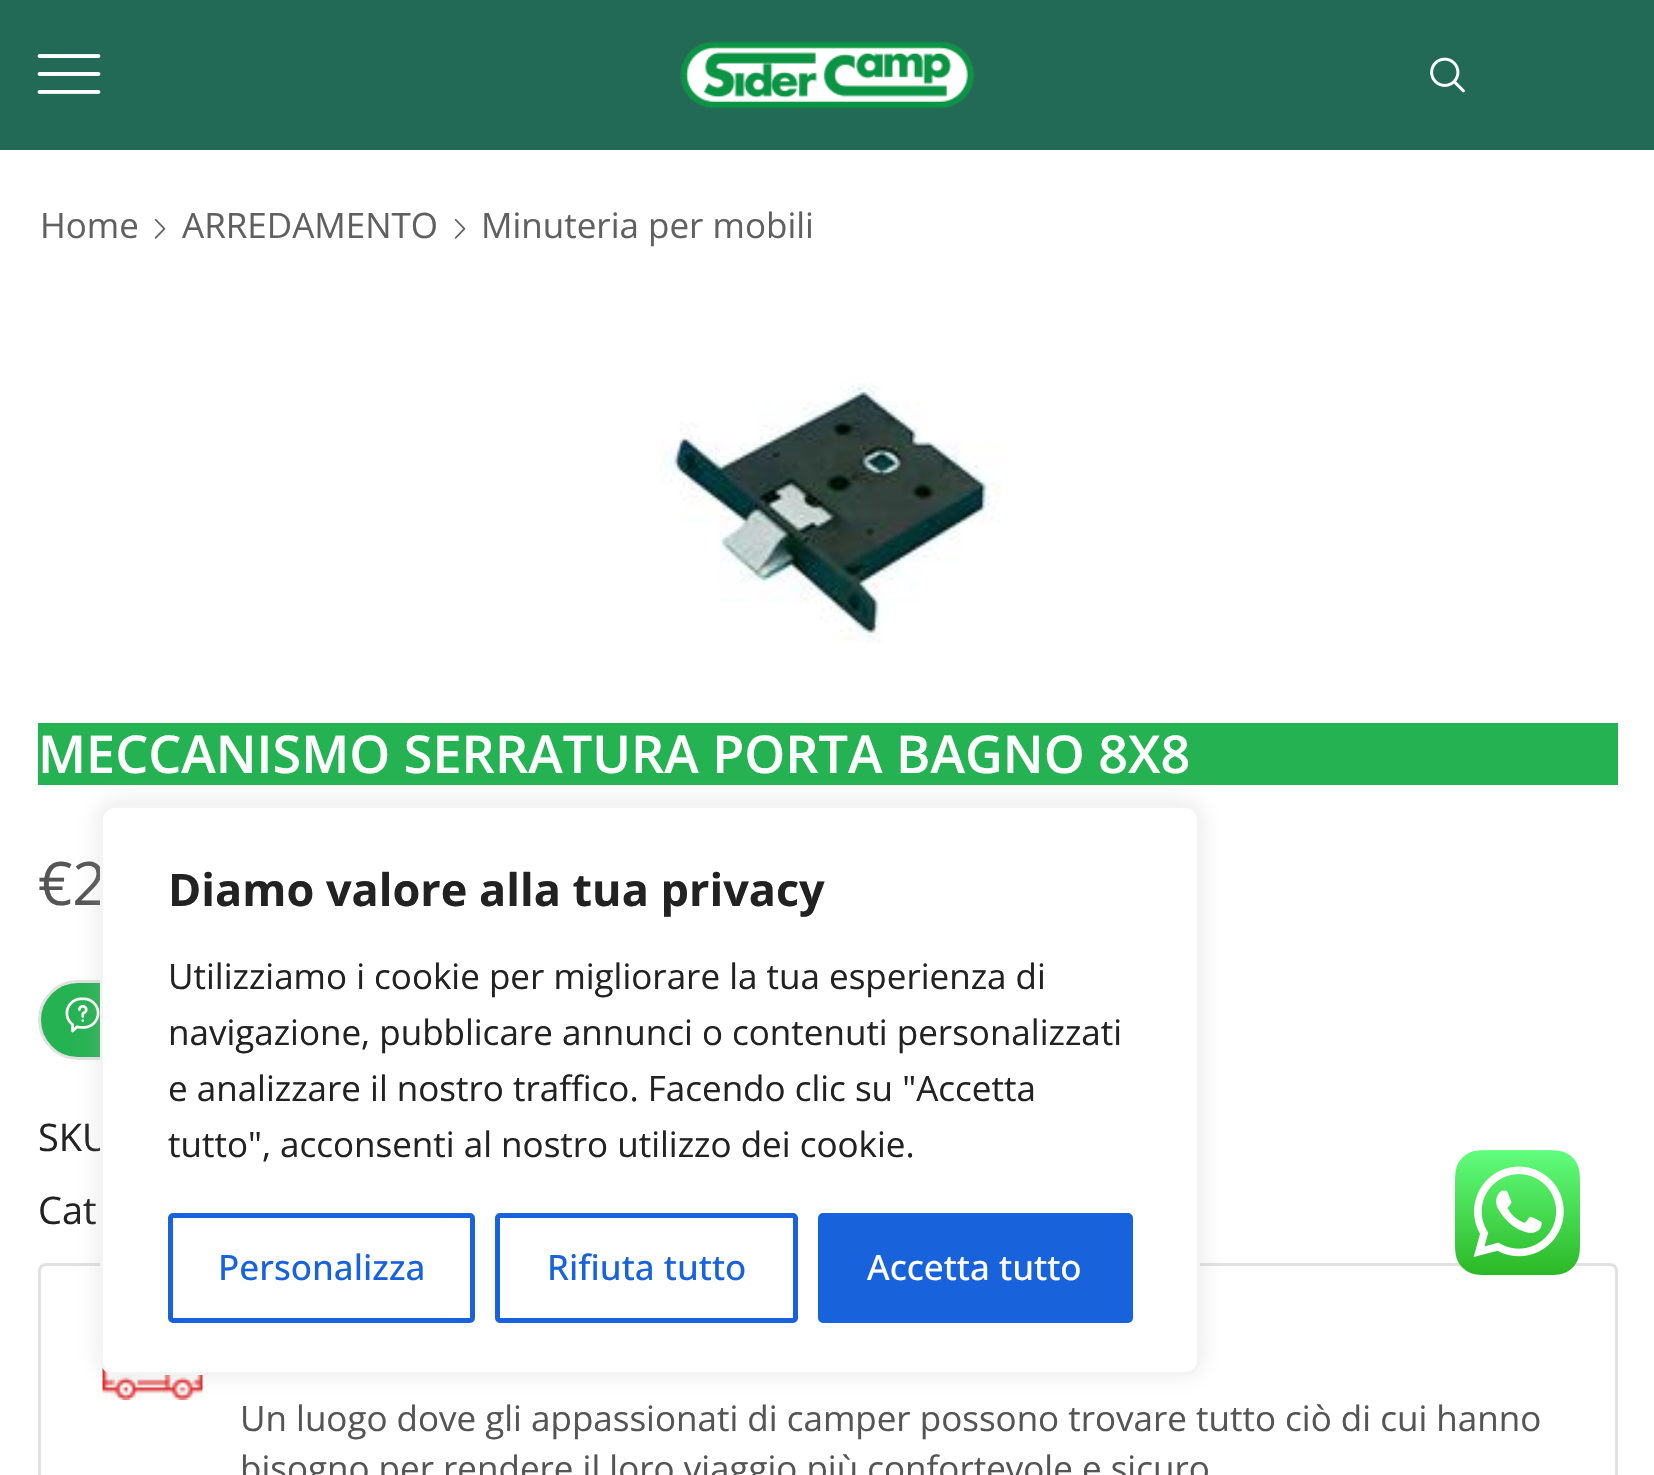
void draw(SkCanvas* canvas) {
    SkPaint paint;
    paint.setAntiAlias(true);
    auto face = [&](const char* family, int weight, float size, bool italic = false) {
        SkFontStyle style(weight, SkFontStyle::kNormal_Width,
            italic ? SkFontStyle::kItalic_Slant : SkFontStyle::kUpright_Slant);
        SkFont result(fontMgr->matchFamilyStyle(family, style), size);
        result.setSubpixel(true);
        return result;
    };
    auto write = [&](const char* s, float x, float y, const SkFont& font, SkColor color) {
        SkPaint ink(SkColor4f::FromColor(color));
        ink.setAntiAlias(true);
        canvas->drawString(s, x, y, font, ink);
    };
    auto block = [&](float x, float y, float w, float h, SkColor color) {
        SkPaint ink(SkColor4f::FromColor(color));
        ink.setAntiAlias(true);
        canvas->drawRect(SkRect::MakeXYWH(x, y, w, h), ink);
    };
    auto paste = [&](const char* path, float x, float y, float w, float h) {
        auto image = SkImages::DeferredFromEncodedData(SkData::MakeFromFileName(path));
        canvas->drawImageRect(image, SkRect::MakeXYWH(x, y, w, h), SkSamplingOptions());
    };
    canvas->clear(SK_ColorWHITE);
    block(0, 0, 1654, 150, SkColorSetRGB(35, 106, 86));
    paste("pic1.png", 37, 54, 64, 40);
    paste("pic2.png", 680, 41, 295, 68);
    paste("pic3.png", 1430, 57, 35, 36);
    auto kFont1 = face("Open Sans", 400, 35);
    write("Home", 40, 238, kFont1, SkColorSetRGB(96, 96, 96));
    paste("pic4.png", 154, 218, 12, 21);
    write("ARREDAMENTO", 182, 238, kFont1, SkColorSetRGB(96, 96, 96));
    paste("pic4.png", 454, 218, 12, 21);
    write("Minuteria per mobili", 481, 238, kFont1, SkColorSetRGB(96, 96, 96));
    paste("pic5.png", 660, 382, 341, 261);
    block(38, 723, 1580, 62, SkColorSetRGB(37, 178, 82));
    auto kFont2 = face("Open Sans", 600, 52.15f);
    write("MECCANISMO SERRATURA PORTA BAGNO 8X8", 38, 773, kFont2, SK_ColorWHITE);
    auto kFont3 = face("Open Sans", 400, 60);
    write("€2", 38, 905, kFont3, SkColorSetRGB(85, 85, 85));
    paint.setColor(SkColorSetRGB(37, 178, 82));
    canvas->drawRoundRect(SkRect::MakeXYWH(39.5f, 981.5f, 479, 77), 38.5f, 38.5f, paint);
    paint.setStyle(SkPaint::kStroke_Style);
    paint.setStrokeWidth(3);
    paint.setColor(SkColorSetRGB(225, 225, 225));
    canvas->drawRoundRect(SkRect::MakeXYWH(39.5f, 981.5f, 479, 77), 38.5f, 38.5f, paint);
    paste("pic6.png", 65, 997, 35, 36);
    auto kFont4 = face("Open Sans", 400, 38);
    write("SKU", 38, 1151, kFont4, SkColorSetRGB(34, 34, 34));
    write("Cat", 38, 1224, kFont4, SkColorSetRGB(34, 34, 34));
    canvas->drawRoundRect(SkRect::MakeXYWH(39.5f, 1264.5f, 1577, 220), 6.5f, 6.5f, paint);
    paste("pic7.png", 102, 1367, 101, 33);
    write("Un luogo dove gli appassionati di camper possono trovare tutto ciò di cui hanno", 240, 1431, kFont1, SkColorSetRGB(85, 85, 85));
    write("bisogno per rendere il loro viaggio più confortevole e sicuro", 240, 1481, kFont1, SkColorSetRGB(85, 85, 85));
    paint.setStyle(SkPaint::kFill_Style);
    paint.setColor(SkColorSetARGB(77, 172, 171, 171));
    paint.setMaskFilter(SkMaskFilter::MakeBlur(kNormal_SkBlurStyle, 12.5f));
    canvas->drawRoundRect(SkRect::MakeXYWH(100, 803, 1100, 570), 15, 15, paint);
    paint.setMaskFilter(nullptr);
    paint.setColor(SK_ColorWHITE);
    canvas->drawRoundRect(SkRect::MakeXYWH(101.5f, 806.5f, 1097, 567), 13.5f, 13.5f, paint);
    paint.setStyle(SkPaint::kStroke_Style);
    paint.setColor(SkColorSetRGB(244, 244, 244));
    canvas->drawRoundRect(SkRect::MakeXYWH(101.5f, 806.5f, 1097, 567), 13.5f, 13.5f, paint);
    auto kFont5 = face("Open Sans", 700, 45);
    write("Diamo valore alla tua privacy", 168, 906, kFont5, SkColorSetRGB(34, 34, 34));
    write("Utilizziamo i cookie per migliorare la tua esperienza di", 168, 989, kFont1, SkColorSetRGB(34, 34, 34));
    write("navigazione, pubblicare annunci o contenuti personalizzati", 168, 1045, kFont1, SkColorSetRGB(34, 34, 34));
    write("e analizzare il nostro traffico. Facendo clic su \"Accetta", 168, 1101, kFont1, SkColorSetRGB(34, 34, 34));
    write("tutto\", acconsenti al nostro utilizzo dei cookie.", 168, 1157, kFont1, SkColorSetRGB(34, 34, 34));
    paint.setStrokeWidth(5);
    paint.setColor(SkColorSetRGB(24, 99, 220));
    canvas->drawRoundRect(SkRect::MakeXYWH(170.5f, 1215.5f, 302, 105), 2.5f, 2.5f, paint);
    auto kFont6 = face("Open Sans", 500, 35);
    write("Personalizza", 218, 1280, kFont6, SkColorSetRGB(24, 99, 220));
    canvas->drawRoundRect(SkRect::MakeXYWH(497.5f, 1215.5f, 298, 105), 2.5f, 2.5f, paint);
    write("Rifiuta tutto", 547, 1280, kFont6, SkColorSetRGB(24, 99, 220));
    paint.setStyle(SkPaint::kFill_Style);
    canvas->drawRoundRect(SkRect::MakeXYWH(820.5f, 1215.5f, 310, 105), 2.5f, 2.5f, paint);
    paint.setStyle(SkPaint::kStroke_Style);
    canvas->drawRoundRect(SkRect::MakeXYWH(820.5f, 1215.5f, 310, 105), 2.5f, 2.5f, paint);
    write("Accetta tutto", 867, 1280, kFont6, SK_ColorWHITE);
    paste("pic8.png", 1455, 1150, 125, 125);
}
